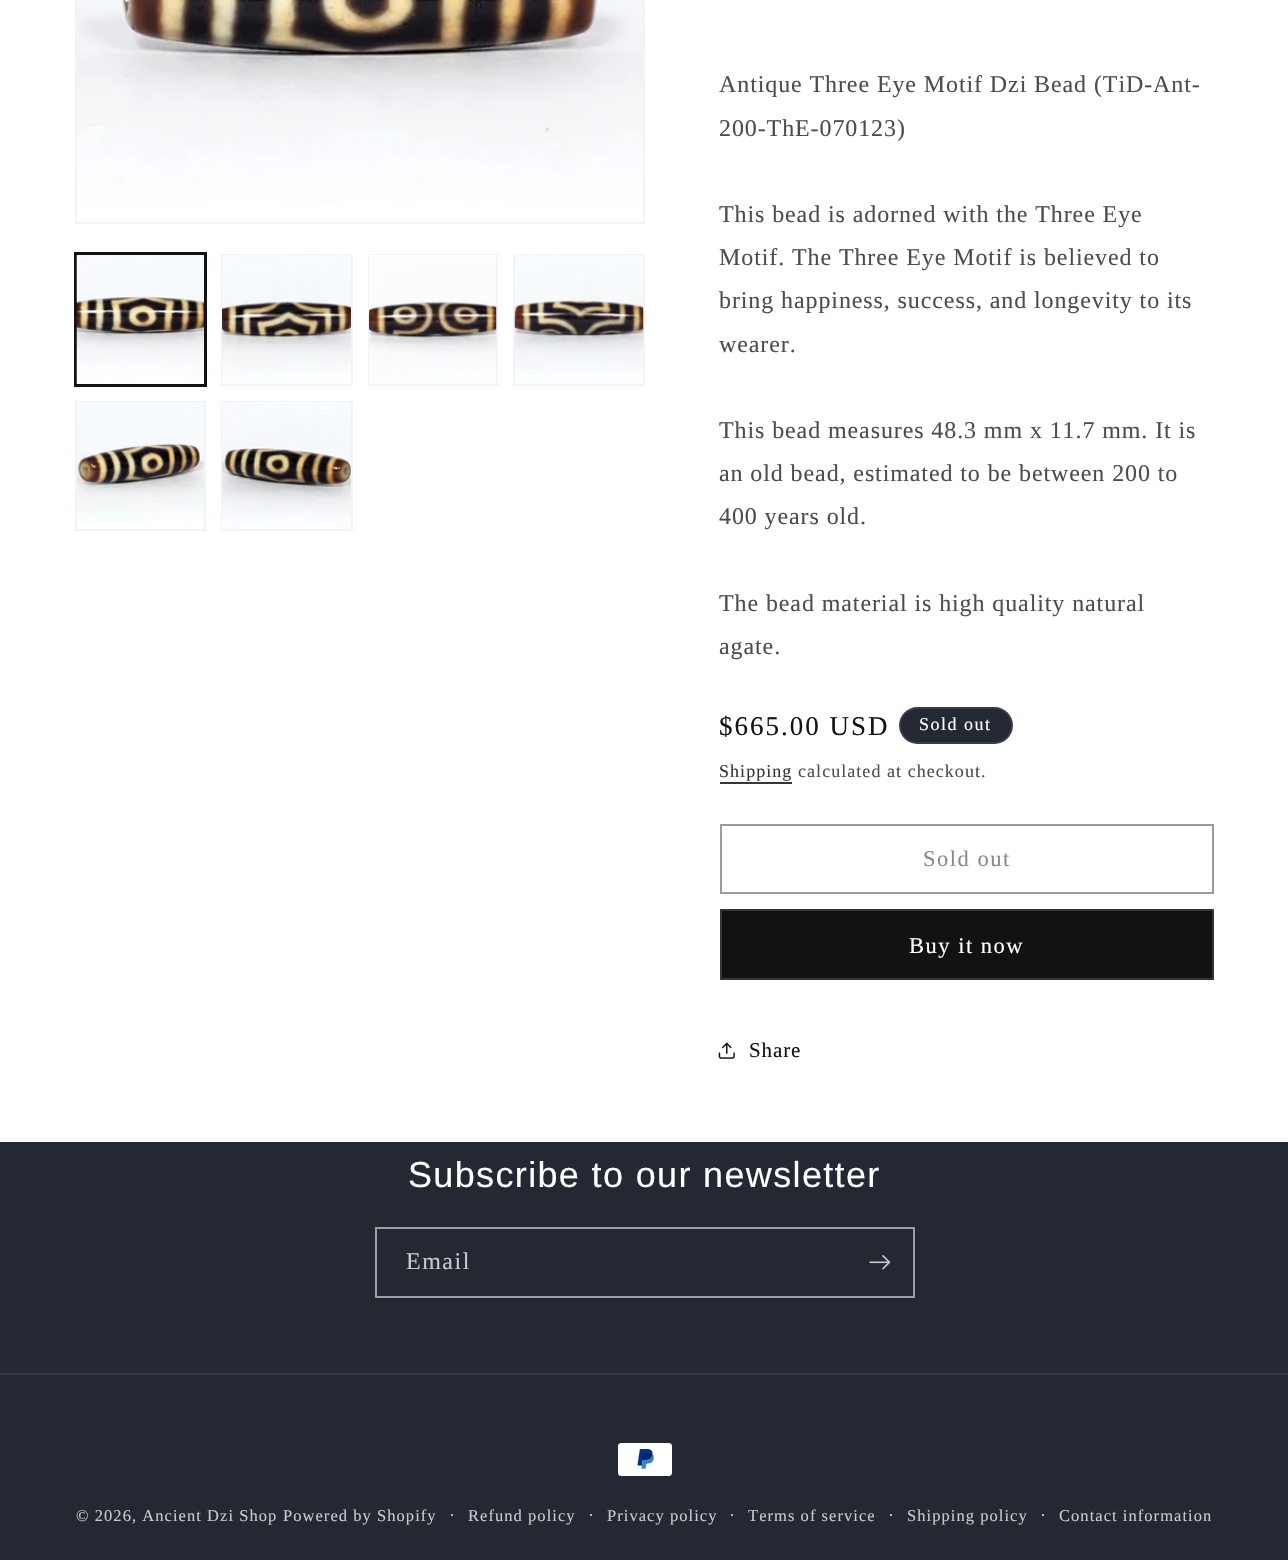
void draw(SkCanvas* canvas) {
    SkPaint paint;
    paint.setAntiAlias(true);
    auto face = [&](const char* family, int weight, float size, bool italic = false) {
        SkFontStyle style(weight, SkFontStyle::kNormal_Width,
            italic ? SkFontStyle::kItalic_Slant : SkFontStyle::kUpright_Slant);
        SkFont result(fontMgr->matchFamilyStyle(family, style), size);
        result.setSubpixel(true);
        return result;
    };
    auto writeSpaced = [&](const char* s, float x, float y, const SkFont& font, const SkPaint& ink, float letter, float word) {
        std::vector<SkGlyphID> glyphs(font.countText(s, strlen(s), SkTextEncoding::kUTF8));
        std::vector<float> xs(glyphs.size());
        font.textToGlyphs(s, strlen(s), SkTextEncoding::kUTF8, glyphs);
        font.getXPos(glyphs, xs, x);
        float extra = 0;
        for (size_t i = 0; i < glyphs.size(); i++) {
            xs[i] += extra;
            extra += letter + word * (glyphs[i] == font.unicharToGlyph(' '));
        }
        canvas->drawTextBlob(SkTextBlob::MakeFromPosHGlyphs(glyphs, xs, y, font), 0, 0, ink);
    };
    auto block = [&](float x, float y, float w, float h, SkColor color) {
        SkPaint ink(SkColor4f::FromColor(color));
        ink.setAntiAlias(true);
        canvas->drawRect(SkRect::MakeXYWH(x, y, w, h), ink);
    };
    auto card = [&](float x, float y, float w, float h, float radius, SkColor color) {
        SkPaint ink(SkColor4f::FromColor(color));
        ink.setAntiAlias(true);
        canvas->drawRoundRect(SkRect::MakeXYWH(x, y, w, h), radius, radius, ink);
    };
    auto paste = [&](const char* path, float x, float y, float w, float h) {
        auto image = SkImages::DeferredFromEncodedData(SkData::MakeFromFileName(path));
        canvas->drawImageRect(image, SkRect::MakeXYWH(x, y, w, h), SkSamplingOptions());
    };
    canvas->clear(SK_ColorWHITE);
    paint.setStyle(SkPaint::kStroke_Style);
    paint.setStrokeWidth(2);
    paint.setColor(SkColorSetRGB(243, 243, 243));
    canvas->drawRect(SkRect::MakeXYWH(76, -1, 568, 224), paint);
    paste("pic1.png", 77, 0, 566, 204);
    paint.setColor(SkColorSetRGB(18, 18, 18));
    canvas->drawRect(SkRect::MakeXYWH(75, 253, 131, 133), paint);
    canvas->drawRect(SkRect::MakeXYWH(76, 255, 129, 130), paint);
    paste("pic2.png", 76, 255, 128, 129);
    paint.setColor(SkColorSetRGB(243, 243, 243));
    canvas->drawRect(SkRect::MakeXYWH(222, 255, 130, 130), paint);
    paste("pic3.png", 222, 255, 129, 129);
    canvas->drawRect(SkRect::MakeXYWH(369, 255, 128, 130), paint);
    paste("pic4.png", 369, 255, 128, 129);
    canvas->drawRect(SkRect::MakeXYWH(514, 255, 130, 130), paint);
    paste("pic5.png", 514, 255, 130, 129);
    canvas->drawRect(SkRect::MakeXYWH(76, 402, 129, 128), paint);
    paste("pic6.png", 77, 402, 127, 121);
    canvas->drawRect(SkRect::MakeXYWH(222, 402, 130, 128), paint);
    paste("pic7.png", 222, 402, 129, 127);
    auto kFont1 = face("Liberation Serif", 400, 24);
    paint.setStyle(SkPaint::kFill_Style);
    paint.setColor(SkColorSetRGB(77, 77, 77));
    writeSpaced("Antique Three Eye Motif Dzi Bead (TiD-Ant-", 719, 92, kFont1, paint, 0.9f, 0);
    writeSpaced("200-ThE-070123)", 719, 136, kFont1, paint, 0.9f, 0);
    writeSpaced("This bead is adorned with the Three Eye", 719, 222, kFont1, paint, 0.9f, 0);
    writeSpaced("Motif. The Three Eye Motif is believed to", 719, 265, kFont1, paint, 0.9f, 0);
    writeSpaced("bring happiness, success, and longevity to its", 719, 308, kFont1, paint, 0.9f, 0);
    writeSpaced("wearer.", 719, 352, kFont1, paint, 0.9f, 0);
    writeSpaced("This bead measures 48.3 mm x 11.7 mm. It is", 719, 438, kFont1, paint, 0.9f, 0);
    writeSpaced("an old bead, estimated to be between 200 to", 719, 481, kFont1, paint, 0.9f, 0);
    writeSpaced("400 years old.", 719, 524, kFont1, paint, 0.9f, 0);
    writeSpaced("The bead material is high quality natural", 719, 611, kFont1, paint, 0.9f, 0);
    writeSpaced("agate.", 719, 654, kFont1, paint, 0.9f, 0);
    auto kFont2 = face("Liberation Serif", 400, 27);
    paint.setColor(SkColorSetRGB(18, 18, 18));
    writeSpaced("$665.00 USD", 719, 735, kFont2, paint, 2, 0);
    card(899, 707, 114, 37, 18.5f, SkColorSetRGB(36, 40, 51));
    paint.setStyle(SkPaint::kStroke_Style);
    paint.setColor(SkColorSetARGB(26, 255, 255, 255));
    canvas->drawRoundRect(SkRect::MakeXYWH(900, 708, 112, 35), 17.5f, 17.5f, paint);
    auto kFont3 = face("Liberation Serif", 400, 18);
    paint.setStyle(SkPaint::kFill_Style);
    paint.setColor(SK_ColorWHITE);
    writeSpaced("Sold out", 919, 730, kFont3, paint, 1.5f, 0);
    paint.setColor(SkColorSetRGB(54, 54, 54));
    writeSpaced("Shipping", 719, 777, kFont3, paint, 1.05f, 0);
    block(720, 782, 72, 2, SkColorSetRGB(54, 54, 54));
    paint.setColor(SkColorSetRGB(77, 77, 77));
    writeSpaced("calculated at checkout.", 798, 777, kFont3, paint, 1.05f, 0);
    paint.setStyle(SkPaint::kStroke_Style);
    paint.setColor(SkColorSetRGB(155, 155, 155));
    canvas->drawRect(SkRect::MakeXYWH(721, 825, 492, 68), paint);
    auto kFont4 = face("Liberation Serif", 400, 22.5f);
    paint.setStyle(SkPaint::kFill_Style);
    paint.setColor(SkColorSetRGB(137, 137, 137));
    writeSpaced("Sold out", 923, 866, kFont4, paint, 1.5f, 0);
    block(722, 911, 490, 67, SkColorSetRGB(18, 18, 18));
    paint.setStyle(SkPaint::kStroke_Style);
    paint.setColor(SkColorSetRGB(54, 54, 54));
    canvas->drawRect(SkRect::MakeXYWH(721, 910, 492, 69), paint);
    paint.setStyle(SkPaint::kFill_Style);
    paint.setColor(SK_ColorWHITE);
    writeSpaced("Buy it now", 909, 953, kFont4, paint, 1.5f, 0);
    paste("pic8.png", 718, 1042, 17, 17);
    auto kFont5 = face("Liberation Serif", 400, 21);
    paint.setColor(SkColorSetRGB(18, 18, 18));
    writeSpaced("Share", 749, 1057, kFont5, paint, 0.9f, 0);
    block(0, 1142, 1288, 418, SkColorSetRGB(36, 40, 51));
    auto kFont6 = face("Liberation Sans", 400, 36);
    paint.setColor(SK_ColorWHITE);
    writeSpaced("Subscribe to our newsletter", 408, 1187, kFont6, paint, 1.35f, 0);
    paint.setStyle(SkPaint::kStroke_Style);
    paint.setColor(SkColorSetRGB(156, 158, 163));
    canvas->drawRect(SkRect::MakeXYWH(376, 1228, 538, 69), paint);
    paint.setStyle(SkPaint::kFill_Style);
    paint.setColor(SkColorSetRGB(200, 201, 204));
    writeSpaced("Email", 406, 1269, kFont1, paint, 1.5f, 0);
    paste("pic9.png", 869, 1255, 22, 15);
    block(0, 1373, 1288, 2, SkColorSetRGB(54, 57, 67));
    paste("pic10.png", 618, 1443, 54, 33);
    auto kFont7 = face("Liberation Serif", 400, 16.5f);
    writeSpaced("© 2026, Ancient Dzi Shop", 76, 1521, kFont7, paint, 1.05f, 0);
    writeSpaced("Powered by Shopify", 283, 1521, kFont7, paint, 1.05f, 0);
    writeSpaced("·", 449, 1521, kFont3, paint, 1.05f, 0);
    writeSpaced("Refund policy", 468, 1521, kFont7, paint, 1.05f, 0);
    writeSpaced("·", 588, 1521, kFont3, paint, 1.05f, 0);
    writeSpaced("Privacy policy", 607, 1521, kFont7, paint, 1.05f, 0);
    writeSpaced("·", 729, 1521, kFont3, paint, 1.05f, 0);
    writeSpaced("Terms of service", 748, 1521, kFont7, paint, 1.05f, 0);
    writeSpaced("·", 888, 1521, kFont3, paint, 1.05f, 0);
    writeSpaced("Shipping policy", 907, 1521, kFont7, paint, 1.05f, 0);
    writeSpaced("·", 1040, 1521, kFont3, paint, 1.05f, 0);
    writeSpaced("Contact information", 1059, 1521, kFont7, paint, 1.05f, 0);
}
